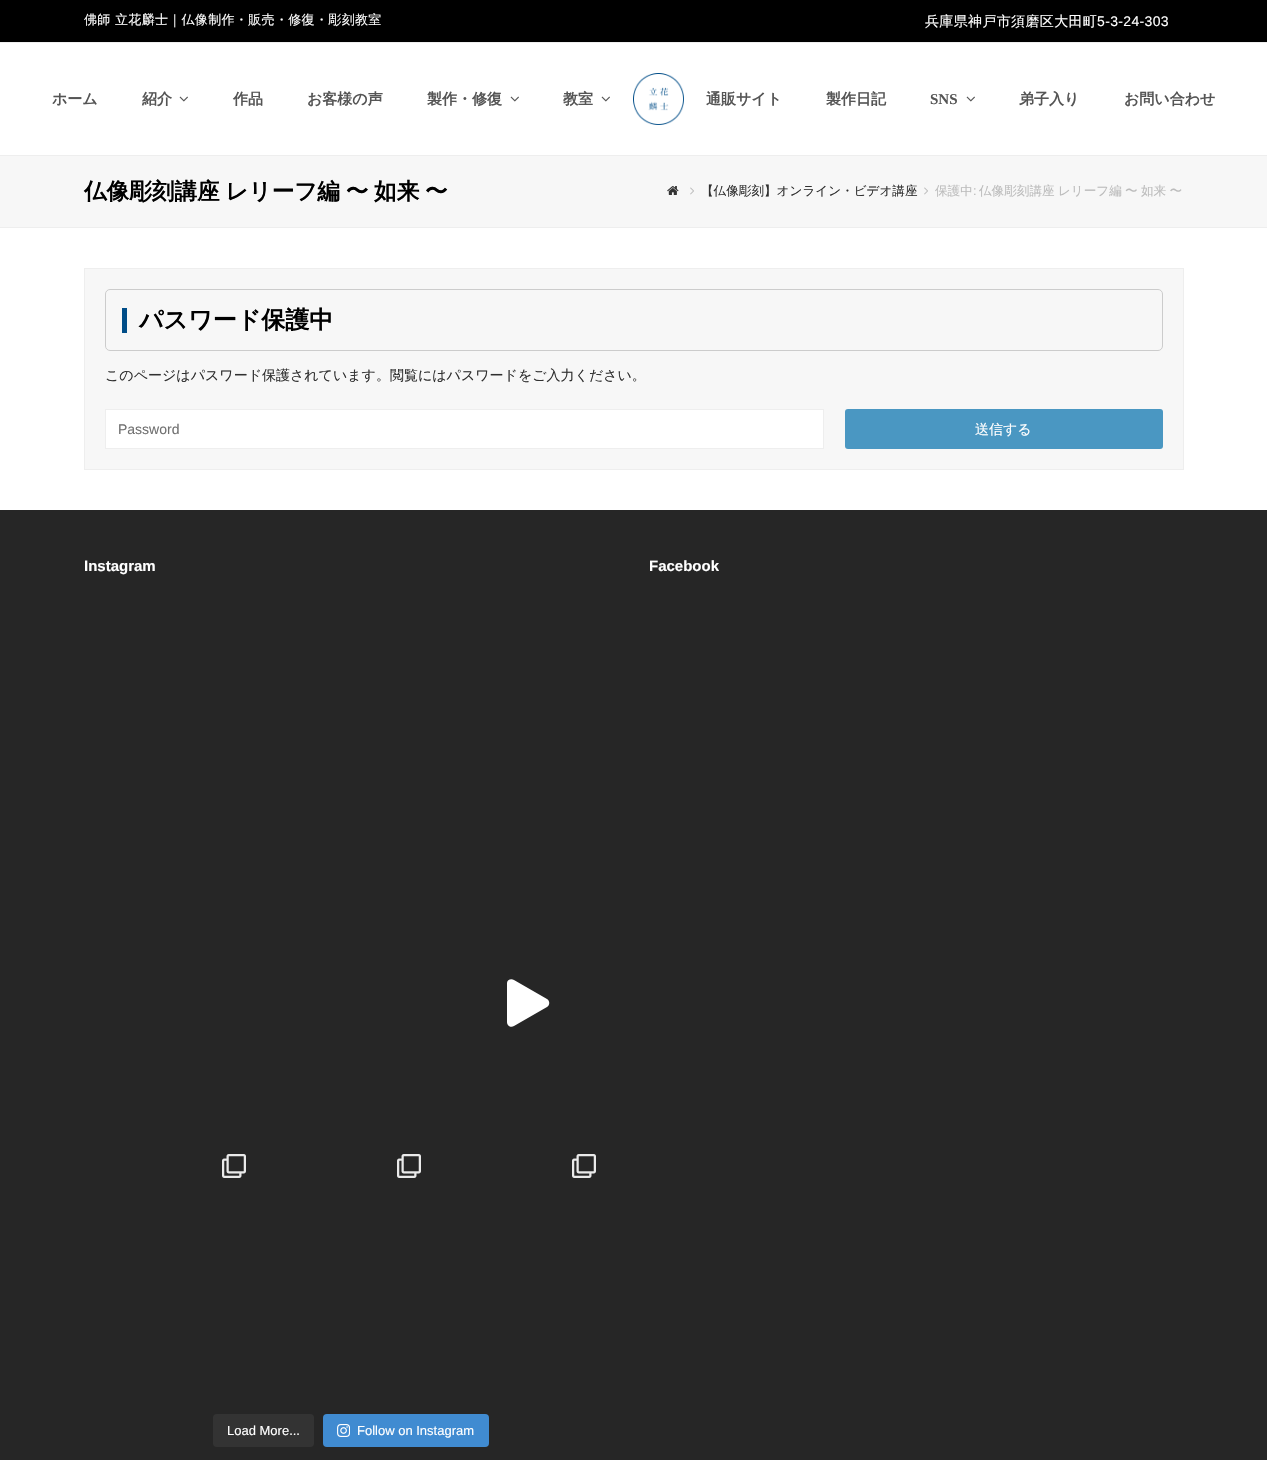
void draw(SkCanvas* canvas) {
    SkPaint paint;
    paint.setAntiAlias(true);
    auto face = [&](const char* family, int weight, float size, bool italic = false) {
        SkFontStyle style(weight, SkFontStyle::kNormal_Width,
            italic ? SkFontStyle::kItalic_Slant : SkFontStyle::kUpright_Slant);
        SkFont result(fontMgr->matchFamilyStyle(family, style), size);
        result.setSubpixel(true);
        return result;
    };
    auto write = [&](const char* s, float x, float y, const SkFont& font, SkColor color) {
        SkPaint ink(SkColor4f::FromColor(color));
        ink.setAntiAlias(true);
        canvas->drawString(s, x, y, font, ink);
    };
    auto writeSpaced = [&](const char* s, float x, float y, const SkFont& font, const SkPaint& ink, float letter, float word) {
        std::vector<SkGlyphID> glyphs(font.countText(s, strlen(s), SkTextEncoding::kUTF8));
        std::vector<float> xs(glyphs.size());
        font.textToGlyphs(s, strlen(s), SkTextEncoding::kUTF8, glyphs);
        font.getXPos(glyphs, xs, x);
        float extra = 0;
        for (size_t i = 0; i < glyphs.size(); i++) {
            xs[i] += extra;
            extra += letter + word * (glyphs[i] == font.unicharToGlyph(' '));
        }
        canvas->drawTextBlob(SkTextBlob::MakeFromPosHGlyphs(glyphs, xs, y, font), 0, 0, ink);
    };
    auto block = [&](float x, float y, float w, float h, SkColor color) {
        SkPaint ink(SkColor4f::FromColor(color));
        ink.setAntiAlias(true);
        canvas->drawRect(SkRect::MakeXYWH(x, y, w, h), ink);
    };
    auto card = [&](float x, float y, float w, float h, float radius, SkColor color) {
        SkPaint ink(SkColor4f::FromColor(color));
        ink.setAntiAlias(true);
        canvas->drawRoundRect(SkRect::MakeXYWH(x, y, w, h), radius, radius, ink);
    };
    auto paste = [&](const char* path, float x, float y, float w, float h) {
        auto image = SkImages::DeferredFromEncodedData(SkData::MakeFromFileName(path));
        canvas->drawImageRect(image, SkRect::MakeXYWH(x, y, w, h), SkSamplingOptions());
    };
    canvas->clear(SK_ColorWHITE);
    block(0, 0, 1267, 42, SK_ColorBLACK);
    block(0, 42, 1267, 1, SkColorSetRGB(238, 238, 238));
    auto kFont1 = face("WenQuanYi Zen Hei", 500, 13);
    paint.setColor(SK_ColorWHITE);
    writeSpaced("佛師 立花麟士｜仏像制作・販売・修復・彫刻教室", 84, 24, kFont1, paint, 0.35f, 0);
    auto kFont2 = face("WenQuanYi Zen Hei", 500, 14);
    writeSpaced("兵庫県神戸市須磨区大田町", 925, 26, kFont2, paint, 0.35f, 0);
    auto kFont3 = face("Liberation Sans", 400, 14);
    writeSpaced("5-3-24-303", 1097, 26, kFont3, paint, 0.35f, 0);
    auto kFont4 = face("WenQuanYi Zen Hei", 700, 15);
    write("ホーム", 52, 104, kFont4, SkColorSetRGB(85, 85, 85));
    write("紹介", 142, 104, kFont4, SkColorSetRGB(85, 85, 85));
    paste("pic1.png", 179, 96, 9, 6);
    write("作品", 233, 104, kFont4, SkColorSetRGB(85, 85, 85));
    write("お客様の声", 307, 104, kFont4, SkColorSetRGB(85, 85, 85));
    write("製作・修復", 427, 104, kFont4, SkColorSetRGB(85, 85, 85));
    paste("pic1.png", 510, 96, 9, 6);
    write("教室", 563, 104, kFont4, SkColorSetRGB(85, 85, 85));
    paste("pic1.png", 601, 96, 9, 6);
    paste("pic2.png", 633, 73, 51, 52);
    write("通販サイト", 706, 104, kFont4, SkColorSetRGB(85, 85, 85));
    write("製作日記", 826, 104, kFont4, SkColorSetRGB(85, 85, 85));
    auto kFont5 = face("Liberation Serif", 700, 15);
    write("SNS", 930, 104, kFont5, SkColorSetRGB(85, 85, 85));
    paste("pic1.png", 966, 96, 9, 6);
    write("弟子入り", 1019, 104, kFont4, SkColorSetRGB(85, 85, 85));
    write("お問い合わせ", 1124, 104, kFont4, SkColorSetRGB(85, 85, 85));
    block(0, 156, 1267, 71, SkColorSetRGB(247, 247, 247));
    block(0, 155, 1267, 1, SkColorSetRGB(238, 238, 238));
    block(0, 227, 1267, 1, SkColorSetRGB(238, 238, 238));
    auto kFont6 = face("WenQuanYi Zen Hei", 700, 22.6f);
    paint.setColor(SK_ColorBLACK);
    writeSpaced("仏像彫刻講座 レリーフ編 〜 如来 〜", 84, 199, kFont6, paint, 0, -1);
    paste("pic3.png", 667, 186, 12, 9);
    paste("pic4.png", 690, 187, 4, 8);
    auto kFont7 = face("WenQuanYi Zen Hei", 500, 12.6f);
    write("【仏像彫刻】オンライン・ビデオ講座", 701, 195, kFont7, SkColorSetRGB(48, 48, 48));
    paste("pic4.png", 924, 187, 4, 8);
    write("保護中", 935, 195, kFont7, SkColorSetRGB(188, 188, 188));
    auto kFont8 = face("Liberation Sans", 400, 12.6f);
    write(":", 973, 195, kFont8, SkColorSetRGB(188, 188, 188));
    paint.setColor(SkColorSetRGB(188, 188, 188));
    writeSpaced("仏像彫刻講座 レリーフ編 〜 如来 〜", 979, 195, kFont7, paint, 0, -0.5f);
    paint.setColor(SkColorSetRGB(247, 247, 247));
    canvas->drawRect(SkRect::MakeXYWH(84.5f, 268.5f, 1099, 201), paint);
    paint.setStyle(SkPaint::kStroke_Style);
    paint.setStrokeWidth(1);
    paint.setColor(SkColorSetRGB(238, 238, 238));
    canvas->drawRect(SkRect::MakeXYWH(84.5f, 268.5f, 1099, 201), paint);
    paint.setColor(SkColorSetRGB(204, 204, 204));
    canvas->drawRoundRect(SkRect::MakeXYWH(105.5f, 289.5f, 1057, 61), 4.5f, 4.5f, paint);
    block(122, 308, 5, 25, SkColorSetRGB(0, 77, 136));
    auto kFont9 = face("WenQuanYi Zen Hei", 700, 24);
    write("パスワード保護中", 139, 328, kFont9, SK_ColorBLACK);
    write("このページはパスワード保護されています。閲覧にはパスワードをご入力ください。", 105, 380, kFont2, SkColorSetRGB(48, 48, 48));
    paint.setStyle(SkPaint::kFill_Style);
    paint.setColor(SK_ColorWHITE);
    canvas->drawRect(SkRect::MakeXYWH(105.5f, 409.5f, 718, 39), paint);
    paint.setStyle(SkPaint::kStroke_Style);
    paint.setColor(SkColorSetRGB(238, 238, 238));
    canvas->drawRect(SkRect::MakeXYWH(105.5f, 409.5f, 718, 39), paint);
    write("Password", 118, 434, kFont3, SkColorSetRGB(112, 112, 112));
    card(845, 409, 318, 40, 3, SkColorSetRGB(74, 151, 194));
    write("送信する", 975, 434, kFont2, SK_ColorWHITE);
    block(0, 510, 1267, 950, SkColorSetRGB(38, 38, 38));
    auto kFont10 = face("Liberation Sans", 700, 15);
    write("Instagram", 84, 571, kFont10, SK_ColorWHITE);
    paint.setStyle(SkPaint::kFill_Style);
    paint.setColor(SK_ColorWHITE);
    canvas->drawPath(SkPathBuilder().moveTo(547, 999).lineTo(514, 980).cubicTo(511, 978, 507, 980, 507, 983).lineTo(507, 1022).cubicTo(507, 1026, 511, 1028, 514, 1026).lineTo(547, 1007).cubicTo(550, 1005, 550, 1001, 547, 999).close().detach(), paint);
    paste("pic5.png", 222, 1154, 24, 24);
    paste("pic5.png", 397, 1154, 24, 24);
    paste("pic5.png", 572, 1154, 24, 24);
    card(213, 1414, 101, 33, 4, SkColorSetRGB(51, 51, 51));
    auto kFont11 = face("Liberation Sans", 400, 13);
    write("Load More...", 227, 1435, kFont11, SK_ColorWHITE);
    card(323, 1414, 166, 33, 4, SkColorSetRGB(64, 139, 209));
    paste("pic6.png", 337, 1424, 13, 13);
    write("Follow on Instagram", 357, 1435, kFont11, SK_ColorWHITE);
    write("Facebook", 649, 571, kFont10, SK_ColorWHITE);
}
